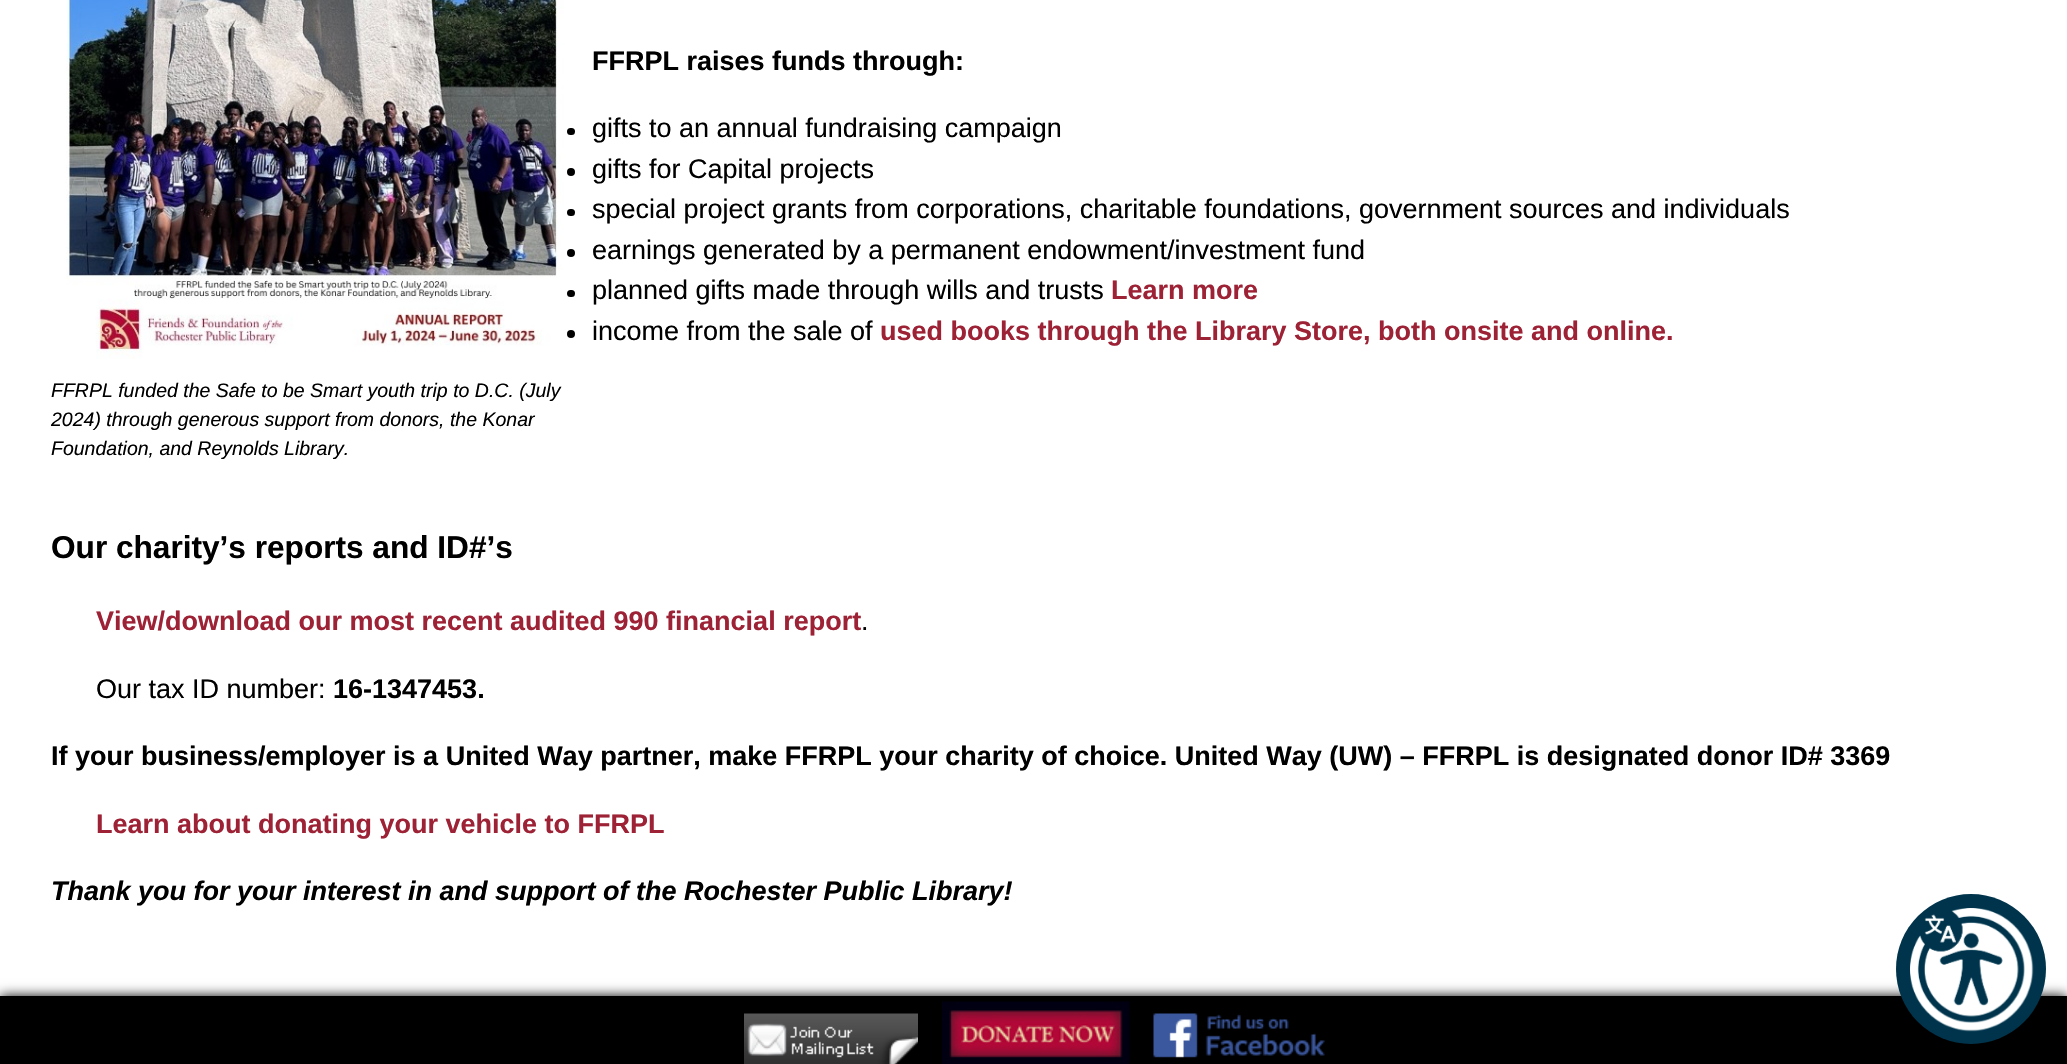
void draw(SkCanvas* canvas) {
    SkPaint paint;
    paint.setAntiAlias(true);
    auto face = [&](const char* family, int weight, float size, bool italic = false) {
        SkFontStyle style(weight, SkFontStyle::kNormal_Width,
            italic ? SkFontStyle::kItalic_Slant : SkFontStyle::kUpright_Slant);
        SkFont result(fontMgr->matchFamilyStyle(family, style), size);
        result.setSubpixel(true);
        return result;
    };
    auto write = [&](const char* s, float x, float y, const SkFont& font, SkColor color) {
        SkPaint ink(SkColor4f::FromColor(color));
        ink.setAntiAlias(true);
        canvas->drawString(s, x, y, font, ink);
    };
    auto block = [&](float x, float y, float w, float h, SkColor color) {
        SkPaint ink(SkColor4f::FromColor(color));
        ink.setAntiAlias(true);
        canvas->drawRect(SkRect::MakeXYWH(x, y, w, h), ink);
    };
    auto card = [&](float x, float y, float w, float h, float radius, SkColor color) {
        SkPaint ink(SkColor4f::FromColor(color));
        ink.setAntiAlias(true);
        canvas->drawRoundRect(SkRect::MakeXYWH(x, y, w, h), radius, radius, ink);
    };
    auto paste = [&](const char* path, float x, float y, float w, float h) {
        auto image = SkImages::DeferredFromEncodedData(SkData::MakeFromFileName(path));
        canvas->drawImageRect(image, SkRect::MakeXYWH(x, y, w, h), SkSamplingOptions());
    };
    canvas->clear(SK_ColorWHITE);
    auto kFont1 = face("Liberation Sans", 700, 27);
    write("FFRPL raises funds through:", 592, 70, kFont1, SK_ColorBLACK);
    card(567, 128, 8, 7, 3.5f, SK_ColorBLACK);
    auto kFont2 = face("Liberation Sans", 400, 27);
    write("gifts to an annual fundraising campaign", 592, 137, kFont2, SK_ColorBLACK);
    paint.setColor(SK_ColorBLACK);
    canvas->drawCircle(571, 172, 4, paint);
    write("gifts for Capital projects", 592, 178, kFont2, SK_ColorBLACK);
    card(567, 209, 8, 7, 3.5f, SK_ColorBLACK);
    write("special project grants from corporations, charitable foundations, government sources and individuals", 592, 218, kFont2, SK_ColorBLACK);
    canvas->drawCircle(571, 253, 4, paint);
    write("earnings generated by a permanent endowment/investment fund", 592, 259, kFont2, SK_ColorBLACK);
    card(567, 290, 8, 7, 3.5f, SK_ColorBLACK);
    write("planned gifts made through wills and trusts", 592, 299, kFont2, SK_ColorBLACK);
    write("Learn more", 1111, 299, kFont1, SkColorSetRGB(157, 34, 53));
    canvas->drawCircle(571, 334, 4, paint);
    write("income from the sale of", 592, 340, kFont2, SK_ColorBLACK);
    write("used books through the Library Store, both onsite and online.", 880, 340, kFont1, SkColorSetRGB(157, 34, 53));
    paste("pic1.png", 66, 0, 498, 359);
    auto kFont3 = face("Liberation Sans", 400, 19.5f, true);
    write("FFRPL funded the Safe to be Smart youth trip to D.C. (July", 51, 397, kFont3, SK_ColorBLACK);
    write("2024) through generous support from donors, the Konar", 51, 426, kFont3, SK_ColorBLACK);
    write("Foundation, and Reynolds Library.", 51, 455, kFont3, SK_ColorBLACK);
    auto kFont4 = face("Liberation Sans", 700, 31.6f);
    write("Our charity’s reports and ID#’s", 51, 558, kFont4, SK_ColorBLACK);
    write("View/download our most recent audited 990 financial report", 96, 630, kFont1, SkColorSetRGB(157, 34, 53));
    write(".", 861, 630, kFont2, SK_ColorBLACK);
    write("Our tax ID number:", 96, 698, kFont2, SK_ColorBLACK);
    write("16-1347453.", 333, 698, kFont1, SK_ColorBLACK);
    write("If your business/employer is a United Way partner, make FFRPL your charity of choice. United Way (UW) – FFRPL is designated donor ID# 3369", 51, 765, kFont1, SK_ColorBLACK);
    write("Learn about donating your vehicle to FFRPL", 96, 833, kFont1, SkColorSetRGB(157, 34, 53));
    auto kFont5 = face("Liberation Sans", 700, 27, true);
    write("Thank you for your interest in and support of the Rochester Public Library!", 51, 900, kFont5, SK_ColorBLACK);
    paint.setMaskFilter(SkMaskFilter::MakeBlur(kNormal_SkBlurStyle, 6));
    canvas->drawRect(SkRect::MakeXYWH(0, 996, 2067, 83), paint);
    paint.setMaskFilter(nullptr);
    block(0, 996, 2067, 68, SK_ColorBLACK);
    paint.setColor(SkColorSetRGB(0, 52, 76));
    canvas->drawCircle(1971, 969, 75, paint);
    paste("pic2.png", 1910, 908, 124, 124);
    paste("pic3.png", 744, 1013, 174, 51);
    paste("pic4.png", 942, 1001, 188, 63);
    paste("pic5.png", 1153, 1013, 172, 45);
}
